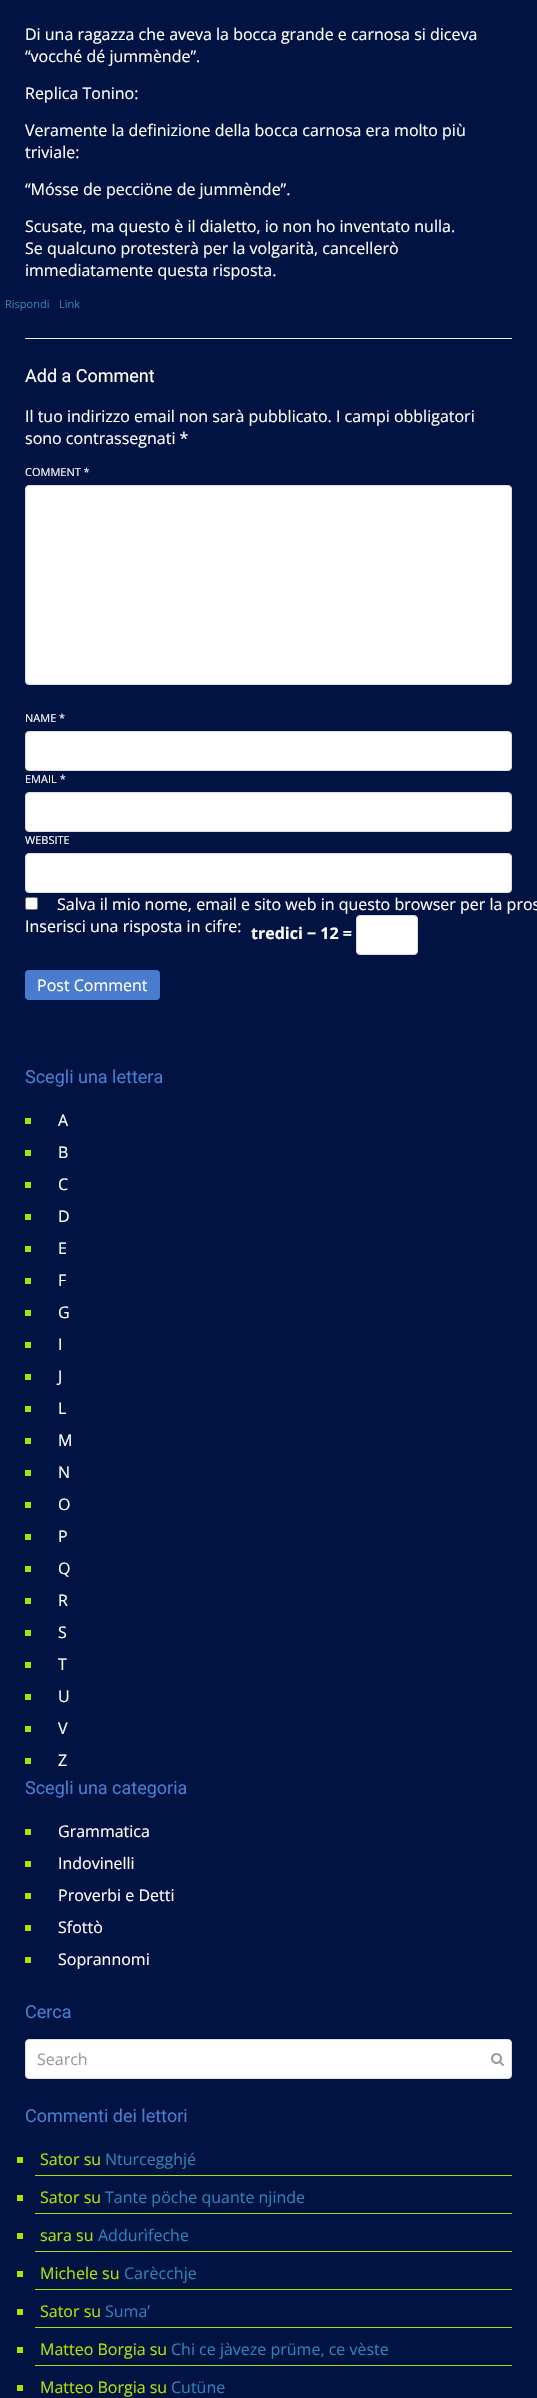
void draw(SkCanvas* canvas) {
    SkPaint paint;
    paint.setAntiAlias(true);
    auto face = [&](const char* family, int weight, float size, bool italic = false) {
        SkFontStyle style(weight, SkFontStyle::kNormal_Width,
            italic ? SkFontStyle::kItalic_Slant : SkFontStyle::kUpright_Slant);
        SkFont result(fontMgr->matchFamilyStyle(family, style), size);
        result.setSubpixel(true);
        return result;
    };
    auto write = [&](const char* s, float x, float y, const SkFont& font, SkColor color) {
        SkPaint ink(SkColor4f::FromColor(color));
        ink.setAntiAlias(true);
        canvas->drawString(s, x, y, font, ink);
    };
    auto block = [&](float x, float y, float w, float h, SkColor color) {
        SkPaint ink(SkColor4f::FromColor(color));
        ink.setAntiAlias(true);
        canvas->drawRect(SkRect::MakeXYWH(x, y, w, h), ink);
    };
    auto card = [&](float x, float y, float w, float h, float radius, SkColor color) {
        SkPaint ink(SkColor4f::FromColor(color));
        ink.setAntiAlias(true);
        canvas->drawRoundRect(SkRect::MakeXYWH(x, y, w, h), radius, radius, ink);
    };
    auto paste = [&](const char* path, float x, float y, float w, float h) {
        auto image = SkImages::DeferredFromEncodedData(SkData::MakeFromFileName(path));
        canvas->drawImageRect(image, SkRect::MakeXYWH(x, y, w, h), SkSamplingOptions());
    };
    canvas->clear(SkColorSetRGB(0, 19, 66));
    auto kFont1 = face("Open Sans", 400, 16);
    write("Di una ragazza che aveva la bocca grande e carnosa si diceva", 25, 40, kFont1, SK_ColorWHITE);
    write("“vocché dé jummènde”.", 25, 62, kFont1, SK_ColorWHITE);
    write("Replica Tonino:", 25, 99, kFont1, SK_ColorWHITE);
    write("Veramente la definizione della bocca carnosa era molto più", 25, 136, kFont1, SK_ColorWHITE);
    write("triviale:", 25, 158, kFont1, SK_ColorWHITE);
    write("“Mósse de pecciöne de jummènde”.", 25, 195, kFont1, SK_ColorWHITE);
    write("Scusate, ma questo è il dialetto, io non ho inventato nulla.", 25, 232, kFont1, SK_ColorWHITE);
    write("Se qualcuno protesterà per la volgarità, cancellerò", 25, 254, kFont1, SK_ColorWHITE);
    write("immediatamente questa risposta.", 25, 276, kFont1, SK_ColorWHITE);
    auto kFont2 = face("Open Sans", 400, 11);
    write("Rispondi", 5, 308, kFont2, SkColorSetRGB(48, 129, 183));
    write("Link", 59, 308, kFont2, SkColorSetRGB(48, 129, 183));
    block(25, 338, 487, 1, SkColorSetRGB(237, 237, 237));
    auto kFont3 = face("Roboto", 400, 18);
    write("Add a Comment", 25, 382, kFont3, SK_ColorWHITE);
    write("Il tuo indirizzo email non sarà pubblicato. I campi obbligatori", 25, 422, kFont1, SK_ColorWHITE);
    write("sono contrassegnati *", 25, 444, kFont1, SK_ColorWHITE);
    write("COMMENT *", 25, 476, kFont2, SK_ColorWHITE);
    paint.setColor(SK_ColorWHITE);
    canvas->drawRoundRect(SkRect::MakeXYWH(25.5f, 485.5f, 486, 199), 3.5f, 3.5f, paint);
    paint.setStyle(SkPaint::kStroke_Style);
    paint.setStrokeWidth(1);
    paint.setColor(SkColorSetRGB(221, 221, 221));
    canvas->drawRoundRect(SkRect::MakeXYWH(25.5f, 485.5f, 486, 199), 3.5f, 3.5f, paint);
    write("NAME *", 25, 722, kFont2, SK_ColorWHITE);
    paint.setStyle(SkPaint::kFill_Style);
    paint.setColor(SK_ColorWHITE);
    canvas->drawRoundRect(SkRect::MakeXYWH(25.5f, 731.5f, 486, 39), 3.5f, 3.5f, paint);
    paint.setStyle(SkPaint::kStroke_Style);
    paint.setColor(SkColorSetRGB(221, 221, 221));
    canvas->drawRoundRect(SkRect::MakeXYWH(25.5f, 731.5f, 486, 39), 3.5f, 3.5f, paint);
    write("EMAIL *", 25, 783, kFont2, SK_ColorWHITE);
    paint.setStyle(SkPaint::kFill_Style);
    paint.setColor(SK_ColorWHITE);
    canvas->drawRoundRect(SkRect::MakeXYWH(25.5f, 792.5f, 486, 39), 3.5f, 3.5f, paint);
    paint.setStyle(SkPaint::kStroke_Style);
    paint.setColor(SkColorSetRGB(221, 221, 221));
    canvas->drawRoundRect(SkRect::MakeXYWH(25.5f, 792.5f, 486, 39), 3.5f, 3.5f, paint);
    write("WEBSITE", 25, 844, kFont2, SK_ColorWHITE);
    paint.setStyle(SkPaint::kFill_Style);
    paint.setColor(SK_ColorWHITE);
    canvas->drawRoundRect(SkRect::MakeXYWH(25.5f, 853.5f, 486, 39), 3.5f, 3.5f, paint);
    paint.setStyle(SkPaint::kStroke_Style);
    paint.setColor(SkColorSetRGB(221, 221, 221));
    canvas->drawRoundRect(SkRect::MakeXYWH(25.5f, 853.5f, 486, 39), 3.5f, 3.5f, paint);
    paint.setStyle(SkPaint::kFill_Style);
    paint.setColor(SK_ColorWHITE);
    canvas->drawRoundRect(SkRect::MakeXYWH(25.5f, 897.5f, 12, 12), 1.5f, 1.5f, paint);
    paint.setStyle(SkPaint::kStroke_Style);
    paint.setColor(SkColorSetRGB(118, 118, 118));
    canvas->drawRoundRect(SkRect::MakeXYWH(25.5f, 897.5f, 12, 12), 1.5f, 1.5f, paint);
    write("Salva il mio nome, email e sito web in questo browser per la pros", 57, 910, kFont1, SK_ColorWHITE);
    write("Inserisci una risposta in cifre:", 25, 932, kFont1, SK_ColorWHITE);
    auto kFont4 = face("Open Sans", 700, 16);
    write("tredici − 12 =", 251, 939, kFont4, SK_ColorWHITE);
    paint.setStyle(SkPaint::kFill_Style);
    paint.setColor(SK_ColorWHITE);
    canvas->drawRoundRect(SkRect::MakeXYWH(356.5f, 915.5f, 61, 39), 3.5f, 3.5f, paint);
    paint.setStyle(SkPaint::kStroke_Style);
    paint.setColor(SkColorSetRGB(221, 221, 221));
    canvas->drawRoundRect(SkRect::MakeXYWH(356.5f, 915.5f, 61, 39), 3.5f, 3.5f, paint);
    card(25, 970, 135, 30, 4, SkColorSetRGB(73, 124, 206));
    write("Post Comment", 37, 991, kFont1, SK_ColorWHITE);
    write("Scegli una lettera", 25, 1083, kFont3, SkColorSetRGB(73, 124, 206));
    block(25, 1118, 6, 6, SkColorSetRGB(177, 225, 0));
    write("A", 58, 1126, kFont1, SK_ColorWHITE);
    block(25, 1150, 6, 6, SkColorSetRGB(177, 225, 0));
    write("B", 58, 1158, kFont1, SK_ColorWHITE);
    block(25, 1182, 6, 6, SkColorSetRGB(177, 225, 0));
    write("C", 58, 1190, kFont1, SK_ColorWHITE);
    block(25, 1214, 6, 6, SkColorSetRGB(177, 225, 0));
    write("D", 58, 1222, kFont1, SK_ColorWHITE);
    block(25, 1246, 6, 6, SkColorSetRGB(177, 225, 0));
    write("E", 58, 1254, kFont1, SK_ColorWHITE);
    block(25, 1278, 6, 6, SkColorSetRGB(177, 225, 0));
    write("F", 58, 1286, kFont1, SK_ColorWHITE);
    block(25, 1310, 6, 6, SkColorSetRGB(177, 225, 0));
    write("G", 58, 1318, kFont1, SK_ColorWHITE);
    block(25, 1342, 6, 6, SkColorSetRGB(177, 225, 0));
    write("I", 58, 1350, kFont1, SK_ColorWHITE);
    block(25, 1374, 6, 6, SkColorSetRGB(177, 225, 0));
    write("J", 58, 1382, kFont1, SK_ColorWHITE);
    block(25, 1406, 6, 6, SkColorSetRGB(177, 225, 0));
    write("L", 58, 1414, kFont1, SK_ColorWHITE);
    block(25, 1438, 6, 6, SkColorSetRGB(177, 225, 0));
    write("M", 58, 1446, kFont1, SK_ColorWHITE);
    block(25, 1470, 6, 6, SkColorSetRGB(177, 225, 0));
    write("N", 58, 1478, kFont1, SK_ColorWHITE);
    block(25, 1502, 6, 6, SkColorSetRGB(177, 225, 0));
    write("O", 58, 1510, kFont1, SK_ColorWHITE);
    block(25, 1534, 6, 6, SkColorSetRGB(177, 225, 0));
    write("P", 58, 1542, kFont1, SK_ColorWHITE);
    block(25, 1566, 6, 6, SkColorSetRGB(177, 225, 0));
    write("Q", 58, 1574, kFont1, SK_ColorWHITE);
    block(25, 1598, 6, 6, SkColorSetRGB(177, 225, 0));
    write("R", 58, 1606, kFont1, SK_ColorWHITE);
    block(25, 1630, 6, 6, SkColorSetRGB(177, 225, 0));
    write("S", 58, 1638, kFont1, SK_ColorWHITE);
    block(25, 1662, 6, 6, SkColorSetRGB(177, 225, 0));
    write("T", 58, 1670, kFont1, SK_ColorWHITE);
    block(25, 1694, 6, 6, SkColorSetRGB(177, 225, 0));
    write("U", 58, 1702, kFont1, SK_ColorWHITE);
    block(25, 1726, 6, 6, SkColorSetRGB(177, 225, 0));
    write("V", 58, 1734, kFont1, SK_ColorWHITE);
    block(25, 1758, 6, 6, SkColorSetRGB(177, 225, 0));
    write("Z", 58, 1766, kFont1, SK_ColorWHITE);
    write("Scegli una categoria", 25, 1794, kFont3, SkColorSetRGB(73, 124, 206));
    block(25, 1829, 6, 6, SkColorSetRGB(177, 225, 0));
    write("Grammatica", 58, 1837, kFont1, SK_ColorWHITE);
    block(25, 1861, 6, 6, SkColorSetRGB(177, 225, 0));
    write("Indovinelli", 58, 1869, kFont1, SK_ColorWHITE);
    block(25, 1893, 6, 6, SkColorSetRGB(177, 225, 0));
    write("Proverbi e Detti", 58, 1901, kFont1, SK_ColorWHITE);
    block(25, 1925, 6, 6, SkColorSetRGB(177, 225, 0));
    write("Sfottò", 58, 1933, kFont1, SK_ColorWHITE);
    block(25, 1957, 6, 6, SkColorSetRGB(177, 225, 0));
    write("Soprannomi", 58, 1965, kFont1, SK_ColorWHITE);
    write("Cerca", 25, 2018, kFont3, SkColorSetRGB(73, 124, 206));
    paint.setStyle(SkPaint::kFill_Style);
    paint.setColor(SK_ColorWHITE);
    canvas->drawRoundRect(SkRect::MakeXYWH(25.5f, 2039.5f, 486, 39), 3.5f, 3.5f, paint);
    paint.setStyle(SkPaint::kStroke_Style);
    paint.setColor(SkColorSetRGB(221, 221, 221));
    canvas->drawRoundRect(SkRect::MakeXYWH(25.5f, 2039.5f, 486, 39), 3.5f, 3.5f, paint);
    write("Search", 37, 2065, kFont1, SkColorSetRGB(153, 153, 153));
    paste("pic1.png", 491, 2053, 13, 13);
    write("Commenti dei lettori", 25, 2122, kFont3, SkColorSetRGB(73, 124, 206));
    block(35, 2175, 477, 1, SkColorSetRGB(177, 225, 0));
    block(17, 2157, 6, 6, SkColorSetRGB(177, 225, 0));
    write("Sator su", 40, 2165, kFont1, SkColorSetRGB(177, 225, 0));
    write("Nturcegghjé", 105, 2165, kFont1, SkColorSetRGB(48, 129, 183));
    block(35, 2213, 477, 1, SkColorSetRGB(177, 225, 0));
    block(17, 2195, 6, 6, SkColorSetRGB(177, 225, 0));
    write("Sator su", 40, 2203, kFont1, SkColorSetRGB(177, 225, 0));
    write("Tante pöche quante njinde", 105, 2203, kFont1, SkColorSetRGB(48, 129, 183));
    block(35, 2251, 477, 1, SkColorSetRGB(177, 225, 0));
    block(17, 2233, 6, 6, SkColorSetRGB(177, 225, 0));
    write("sara su", 40, 2241, kFont1, SkColorSetRGB(177, 225, 0));
    write("Addurìfeche", 98, 2241, kFont1, SkColorSetRGB(48, 129, 183));
    block(35, 2289, 477, 1, SkColorSetRGB(177, 225, 0));
    block(17, 2271, 6, 6, SkColorSetRGB(177, 225, 0));
    write("Michele su", 40, 2279, kFont1, SkColorSetRGB(177, 225, 0));
    write("Carècchje", 124, 2279, kFont1, SkColorSetRGB(48, 129, 183));
    block(35, 2327, 477, 1, SkColorSetRGB(177, 225, 0));
    block(17, 2309, 6, 6, SkColorSetRGB(177, 225, 0));
    write("Sator su", 40, 2317, kFont1, SkColorSetRGB(177, 225, 0));
    write("Suma’", 105, 2317, kFont1, SkColorSetRGB(48, 129, 183));
    block(35, 2365, 477, 1, SkColorSetRGB(177, 225, 0));
    block(17, 2347, 6, 6, SkColorSetRGB(177, 225, 0));
    write("Matteo Borgia su", 40, 2355, kFont1, SkColorSetRGB(177, 225, 0));
    write("Chi ce jàveze prüme, ce vèste", 171, 2355, kFont1, SkColorSetRGB(48, 129, 183));
    block(17, 2385, 6, 6, SkColorSetRGB(177, 225, 0));
    write("Matteo Borgia su", 40, 2393, kFont1, SkColorSetRGB(177, 225, 0));
    write("Cutüne", 171, 2393, kFont1, SkColorSetRGB(48, 129, 183));
}
